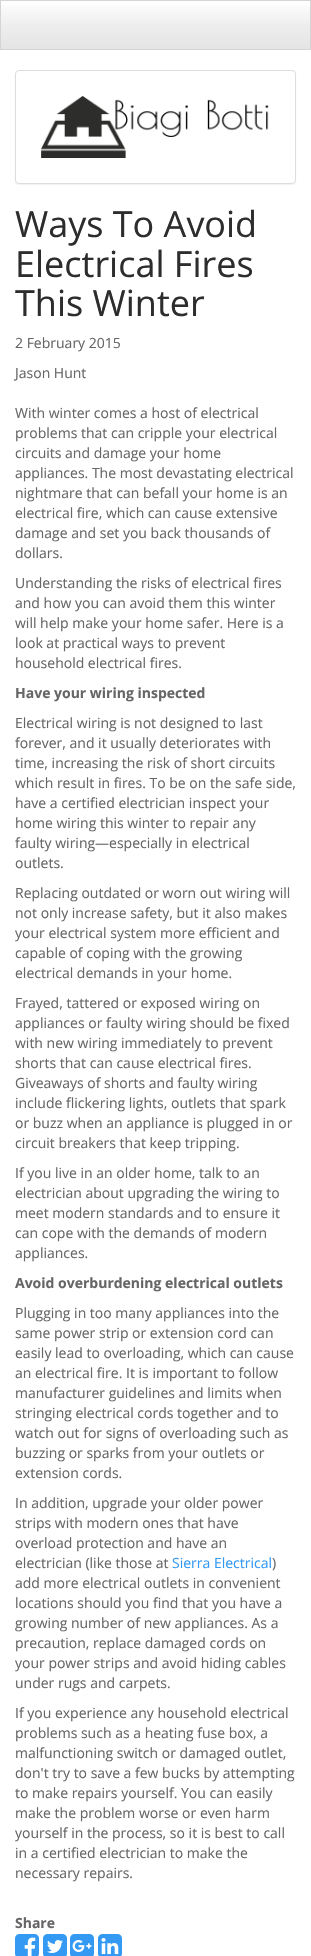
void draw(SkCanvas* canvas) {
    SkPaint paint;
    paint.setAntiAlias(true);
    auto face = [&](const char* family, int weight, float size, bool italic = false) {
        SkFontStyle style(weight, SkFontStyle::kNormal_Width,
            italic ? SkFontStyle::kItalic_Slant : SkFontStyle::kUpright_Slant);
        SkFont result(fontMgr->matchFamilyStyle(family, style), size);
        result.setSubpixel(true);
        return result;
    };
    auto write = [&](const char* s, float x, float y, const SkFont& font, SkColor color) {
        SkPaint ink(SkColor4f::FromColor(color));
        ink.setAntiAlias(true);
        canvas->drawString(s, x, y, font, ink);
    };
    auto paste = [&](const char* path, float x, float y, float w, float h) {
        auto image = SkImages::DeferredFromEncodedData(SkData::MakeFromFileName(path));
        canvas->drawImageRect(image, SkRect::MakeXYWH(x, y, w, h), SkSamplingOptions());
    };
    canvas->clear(SK_ColorWHITE);
    {
        const SkColor colors[] = {SK_ColorWHITE, SkColorSetRGB(238, 238, 238), SkColorSetRGB(228, 228, 228)};
        const float stops[] = {0, 0.5f, 1};
        const SkPoint ends[] = {{156, 1}, {156, 49}};
        paint.setShader(SkGradientShader::MakeLinear(ends, colors, stops, 3, SkTileMode::kClamp));
        paint.setAlpha(255);
    }
    canvas->drawRect(SkRect::MakeXYWH(1, 5, 309, 44), paint);
    paint.setStyle(SkPaint::kStroke_Style);
    paint.setStrokeWidth(1);
    paint.setShader(nullptr);
    paint.setColor(SkColorSetRGB(213, 213, 213));
    canvas->drawRect(SkRect::MakeXYWH(0.5f, 0.5f, 310, 49), paint);
    paint.setStyle(SkPaint::kFill_Style);
    paint.setColor(SkColorSetARGB(13, 0, 0, 0));
    paint.setMaskFilter(SkMaskFilter::MakeBlur(kNormal_SkBlurStyle, 0.5f));
    canvas->drawRoundRect(SkRect::MakeXYWH(15, 71, 281, 114), 4, 4, paint);
    paint.setMaskFilter(nullptr);
    paint.setColor(SK_ColorWHITE);
    canvas->drawRoundRect(SkRect::MakeXYWH(15.5f, 70.5f, 280, 113), 3.5f, 3.5f, paint);
    paint.setStyle(SkPaint::kStroke_Style);
    paint.setColor(SkColorSetRGB(221, 221, 221));
    canvas->drawRoundRect(SkRect::MakeXYWH(15.5f, 70.5f, 280, 113), 3.5f, 3.5f, paint);
    paste("pic1.png", 41, 96, 228, 62);
    auto kFont1 = face("Open Sans", 400, 36);
    write("Ways To Avoid", 15, 237, kFont1, SkColorSetRGB(45, 45, 45));
    write("Electrical Fires", 15, 277, kFont1, SkColorSetRGB(45, 45, 45));
    write("This Winter", 15, 316, kFont1, SkColorSetRGB(45, 45, 45));
    auto kFont2 = face("Open Sans", 400, 14);
    write("2 February 2015", 15, 348, kFont2, SkColorSetRGB(102, 102, 102));
    write("Jason Hunt", 15, 378, kFont2, SkColorSetRGB(102, 102, 102));
    write("With winter comes a host of electrical", 15, 418, kFont2, SkColorSetRGB(102, 102, 102));
    write("problems that can cripple your electrical", 15, 438, kFont2, SkColorSetRGB(102, 102, 102));
    write("circuits and damage your home", 15, 458, kFont2, SkColorSetRGB(102, 102, 102));
    write("appliances. The most devastating electrical", 15, 478, kFont2, SkColorSetRGB(102, 102, 102));
    write("nightmare that can befall your home is an", 15, 498, kFont2, SkColorSetRGB(102, 102, 102));
    write("electrical fire, which can cause extensive", 15, 518, kFont2, SkColorSetRGB(102, 102, 102));
    write("damage and set you back thousands of", 15, 538, kFont2, SkColorSetRGB(102, 102, 102));
    write("dollars.", 15, 558, kFont2, SkColorSetRGB(102, 102, 102));
    write("Understanding the risks of electrical fires", 15, 588, kFont2, SkColorSetRGB(102, 102, 102));
    write("and how you can avoid them this winter", 15, 608, kFont2, SkColorSetRGB(102, 102, 102));
    write("will help make your home safer. Here is a", 15, 628, kFont2, SkColorSetRGB(102, 102, 102));
    write("look at practical ways to prevent", 15, 648, kFont2, SkColorSetRGB(102, 102, 102));
    write("household electrical fires.", 15, 668, kFont2, SkColorSetRGB(102, 102, 102));
    auto kFont3 = face("Open Sans", 700, 14);
    write("Have your wiring inspected", 15, 698, kFont3, SkColorSetRGB(102, 102, 102));
    write("Electrical wiring is not designed to last", 15, 728, kFont2, SkColorSetRGB(102, 102, 102));
    write("forever, and it usually deteriorates with", 15, 748, kFont2, SkColorSetRGB(102, 102, 102));
    write("time, increasing the risk of short circuits", 15, 768, kFont2, SkColorSetRGB(102, 102, 102));
    write("which result in fires. To be on the safe side,", 15, 788, kFont2, SkColorSetRGB(102, 102, 102));
    write("have a certified electrician inspect your", 15, 808, kFont2, SkColorSetRGB(102, 102, 102));
    write("home wiring this winter to repair any", 15, 828, kFont2, SkColorSetRGB(102, 102, 102));
    write("faulty wiring—especially in electrical", 15, 848, kFont2, SkColorSetRGB(102, 102, 102));
    write("outlets.", 15, 868, kFont2, SkColorSetRGB(102, 102, 102));
    write("Replacing outdated or worn out wiring will", 15, 898, kFont2, SkColorSetRGB(102, 102, 102));
    write("not only increase safety, but it also makes", 15, 918, kFont2, SkColorSetRGB(102, 102, 102));
    write("your electrical system more efficient and", 15, 938, kFont2, SkColorSetRGB(102, 102, 102));
    write("capable of coping with the growing", 15, 958, kFont2, SkColorSetRGB(102, 102, 102));
    write("electrical demands in your home.", 15, 978, kFont2, SkColorSetRGB(102, 102, 102));
    write("Frayed, tattered or exposed wiring on", 15, 1008, kFont2, SkColorSetRGB(102, 102, 102));
    write("appliances or faulty wiring should be fixed", 15, 1028, kFont2, SkColorSetRGB(102, 102, 102));
    write("with new wiring immediately to prevent", 15, 1048, kFont2, SkColorSetRGB(102, 102, 102));
    write("shorts that can cause electrical fires.", 15, 1068, kFont2, SkColorSetRGB(102, 102, 102));
    write("Giveaways of shorts and faulty wiring", 15, 1088, kFont2, SkColorSetRGB(102, 102, 102));
    write("include flickering lights, outlets that spark", 15, 1108, kFont2, SkColorSetRGB(102, 102, 102));
    write("or buzz when an appliance is plugged in or", 15, 1128, kFont2, SkColorSetRGB(102, 102, 102));
    write("circuit breakers that keep tripping.", 15, 1148, kFont2, SkColorSetRGB(102, 102, 102));
    write("If you live in an older home, talk to an", 15, 1178, kFont2, SkColorSetRGB(102, 102, 102));
    write("electrician about upgrading the wiring to", 15, 1198, kFont2, SkColorSetRGB(102, 102, 102));
    write("meet modern standards and to ensure it", 15, 1218, kFont2, SkColorSetRGB(102, 102, 102));
    write("can cope with the demands of modern", 15, 1238, kFont2, SkColorSetRGB(102, 102, 102));
    write("appliances.", 15, 1258, kFont2, SkColorSetRGB(102, 102, 102));
    write("Avoid overburdening electrical outlets", 15, 1288, kFont3, SkColorSetRGB(102, 102, 102));
    write("Plugging in too many appliances into the", 15, 1318, kFont2, SkColorSetRGB(102, 102, 102));
    write("same power strip or extension cord can", 15, 1338, kFont2, SkColorSetRGB(102, 102, 102));
    write("easily lead to overloading, which can cause", 15, 1358, kFont2, SkColorSetRGB(102, 102, 102));
    write("an electrical fire. It is important to follow", 15, 1378, kFont2, SkColorSetRGB(102, 102, 102));
    write("manufacturer guidelines and limits when", 15, 1398, kFont2, SkColorSetRGB(102, 102, 102));
    write("stringing electrical cords together and to", 15, 1418, kFont2, SkColorSetRGB(102, 102, 102));
    write("watch out for signs of overloading such as", 15, 1438, kFont2, SkColorSetRGB(102, 102, 102));
    write("buzzing or sparks from your outlets or", 15, 1458, kFont2, SkColorSetRGB(102, 102, 102));
    write("extension cords.", 15, 1478, kFont2, SkColorSetRGB(102, 102, 102));
    write("In addition, upgrade your older power", 15, 1508, kFont2, SkColorSetRGB(102, 102, 102));
    write("strips with modern ones that have", 15, 1528, kFont2, SkColorSetRGB(102, 102, 102));
    write("overload protection and have an", 15, 1548, kFont2, SkColorSetRGB(102, 102, 102));
    write("electrician (like those at", 15, 1568, kFont2, SkColorSetRGB(102, 102, 102));
    write("Sierra Electrical", 172, 1568, kFont2, SkColorSetRGB(51, 153, 243));
    write(")", 272, 1568, kFont2, SkColorSetRGB(102, 102, 102));
    write("add more electrical outlets in convenient", 15, 1588, kFont2, SkColorSetRGB(102, 102, 102));
    write("locations should you find that you have a", 15, 1608, kFont2, SkColorSetRGB(102, 102, 102));
    write("growing number of new appliances. As a", 15, 1628, kFont2, SkColorSetRGB(102, 102, 102));
    write("precaution, replace damaged cords on", 15, 1648, kFont2, SkColorSetRGB(102, 102, 102));
    write("your power strips and avoid hiding cables", 15, 1668, kFont2, SkColorSetRGB(102, 102, 102));
    write("under rugs and carpets.", 15, 1688, kFont2, SkColorSetRGB(102, 102, 102));
    write("If you experience any household electrical", 15, 1718, kFont2, SkColorSetRGB(102, 102, 102));
    write("problems such as a heating fuse box, a", 15, 1738, kFont2, SkColorSetRGB(102, 102, 102));
    write("malfunctioning switch or damaged outlet,", 15, 1758, kFont2, SkColorSetRGB(102, 102, 102));
    write("don't try to save a few bucks by attempting", 15, 1778, kFont2, SkColorSetRGB(102, 102, 102));
    write("to make repairs yourself. You can easily", 15, 1798, kFont2, SkColorSetRGB(102, 102, 102));
    write("make the problem worse or even harm", 15, 1818, kFont2, SkColorSetRGB(102, 102, 102));
    write("yourself in the process, so it is best to call", 15, 1838, kFont2, SkColorSetRGB(102, 102, 102));
    write("in a certified electrician to make the", 15, 1858, kFont2, SkColorSetRGB(102, 102, 102));
    write("necessary repairs.", 15, 1878, kFont2, SkColorSetRGB(102, 102, 102));
    write("Share", 15, 1928, kFont3, SkColorSetRGB(102, 102, 102));
    paste("pic2.png", 15, 1934, 24, 22);
    paste("pic3.png", 43, 1934, 24, 22);
    paste("pic4.png", 70, 1934, 24, 22);
    paste("pic5.png", 98, 1934, 24, 22);
}
